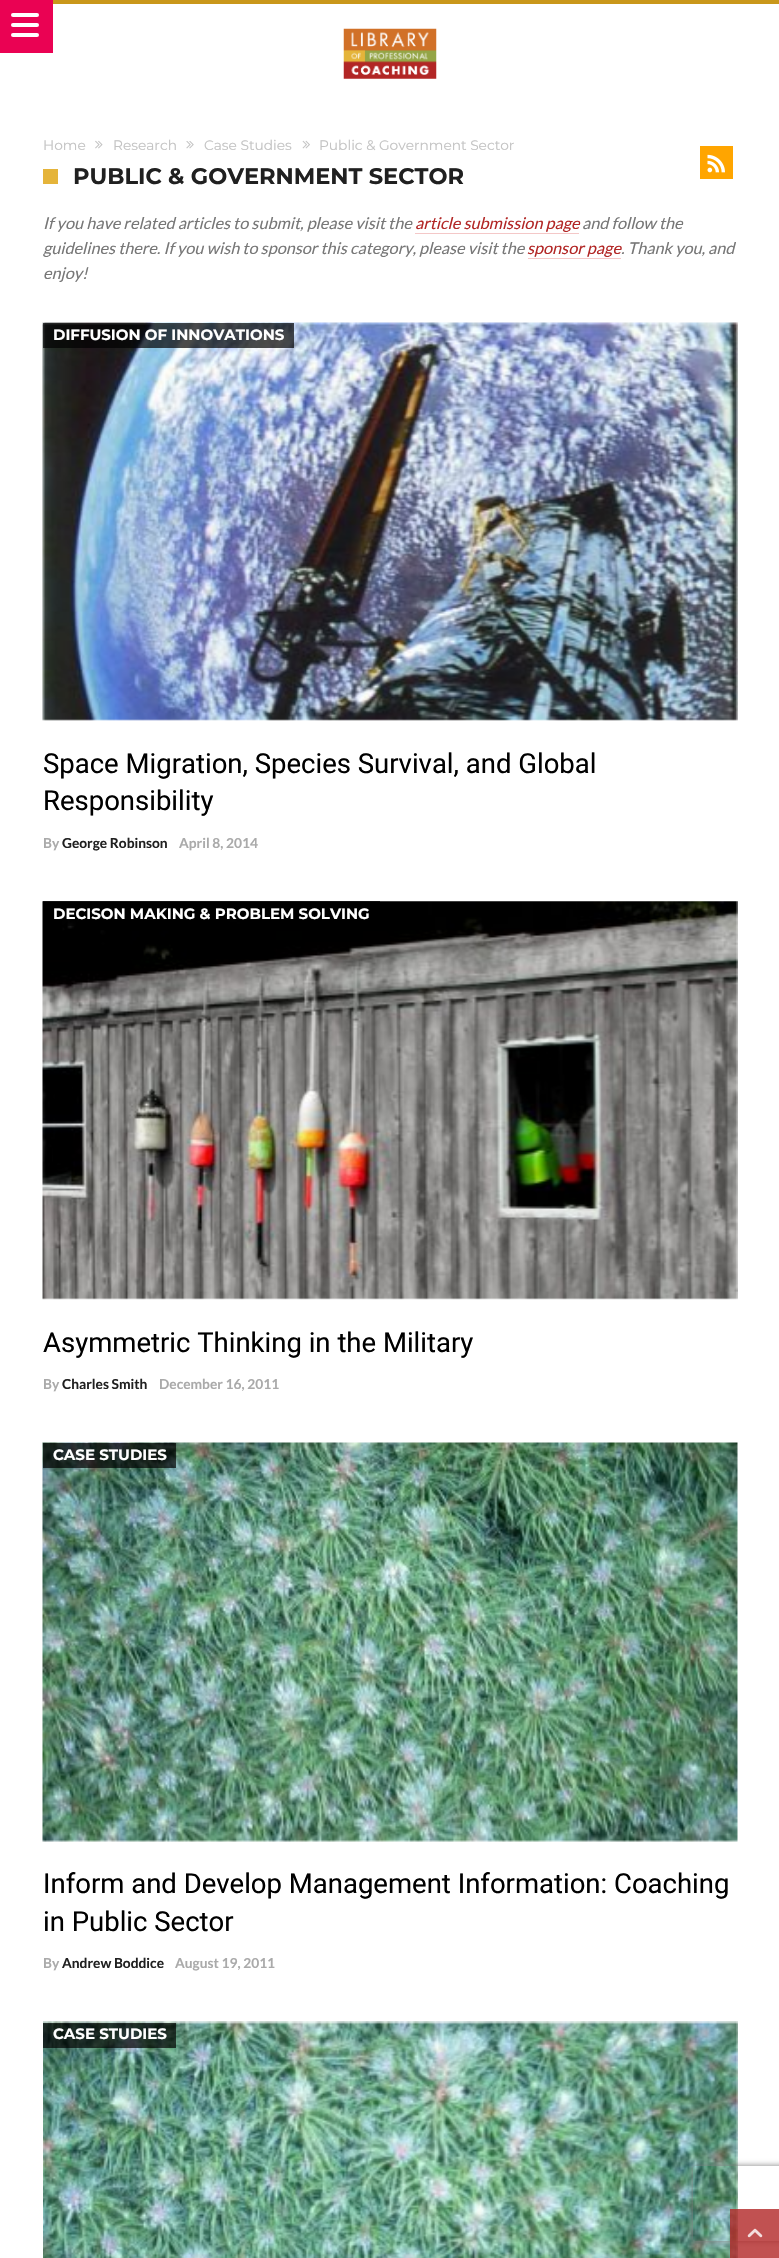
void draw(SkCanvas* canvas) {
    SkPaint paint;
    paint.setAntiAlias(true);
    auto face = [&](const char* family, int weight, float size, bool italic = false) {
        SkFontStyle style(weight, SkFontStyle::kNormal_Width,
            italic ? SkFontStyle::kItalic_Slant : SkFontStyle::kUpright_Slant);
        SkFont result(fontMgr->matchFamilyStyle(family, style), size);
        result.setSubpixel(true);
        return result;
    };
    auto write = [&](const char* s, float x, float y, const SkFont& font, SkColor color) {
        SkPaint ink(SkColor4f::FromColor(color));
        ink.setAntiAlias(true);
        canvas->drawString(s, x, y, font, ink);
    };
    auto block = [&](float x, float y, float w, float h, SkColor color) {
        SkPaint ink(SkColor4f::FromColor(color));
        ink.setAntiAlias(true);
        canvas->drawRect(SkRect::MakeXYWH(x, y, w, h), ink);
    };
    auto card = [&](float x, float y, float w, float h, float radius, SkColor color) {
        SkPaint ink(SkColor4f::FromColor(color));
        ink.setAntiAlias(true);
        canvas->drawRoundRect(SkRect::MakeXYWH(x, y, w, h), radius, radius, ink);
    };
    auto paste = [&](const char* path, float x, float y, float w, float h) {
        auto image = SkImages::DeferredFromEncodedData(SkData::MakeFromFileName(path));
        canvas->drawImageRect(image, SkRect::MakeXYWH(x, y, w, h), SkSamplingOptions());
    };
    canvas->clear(SK_ColorWHITE);
    block(53, 0, 726, 4, SkColorSetRGB(201, 151, 26));
    block(0, 0, 53, 53, SkColorSetRGB(234, 2, 83));
    card(11, 13, 28, 4, 2, SK_ColorWHITE);
    card(11, 23, 28, 4, 2, SK_ColorWHITE);
    card(11, 33, 28, 4, 2, SK_ColorWHITE);
    paste("pic1.png", 343, 28, 94, 51);
    auto kFont1 = face("Montserrat", 400, 13.75f);
    write("Home", 43, 150, kFont1, SkColorSetRGB(195, 195, 195));
    paste("pic2.png", 95, 140, 8, 9);
    write("Research", 113, 150, kFont1, SkColorSetRGB(195, 195, 195));
    paste("pic3.png", 186, 141, 8, 8);
    write("Case Studies", 204, 150, kFont1, SkColorSetRGB(195, 195, 195));
    paste("pic4.png", 302, 140, 8, 9);
    write("Public & Government Sector", 319, 150, kFont1, SkColorSetRGB(195, 195, 195));
    block(43, 169, 15, 15, SkColorSetRGB(229, 180, 58));
    auto kFont2 = face("Montserrat", 700, 22.5f);
    write("PUBLIC & GOVERNMENT SECTOR", 73, 184, kFont2, SkColorSetRGB(32, 32, 32));
    auto kFont3 = face("Lato", 400, 16.25f, true);
    write("If you have related articles to submit, please visit the", 43, 229, kFont3, SkColorSetRGB(119, 119, 119));
    write("article submission page", 415, 229, kFont3, SkColorSetRGB(178, 38, 37));
    block(415, 233, 164, 1, SkColorSetRGB(244, 200, 200));
    write("and follow the", 582, 229, kFont3, SkColorSetRGB(119, 119, 119));
    write("guidelines there. If you wish to sponsor this category, please visit the", 43, 254, kFont3, SkColorSetRGB(119, 119, 119));
    write("sponsor page", 527, 254, kFont3, SkColorSetRGB(178, 38, 37));
    block(528, 258, 93, 1, SkColorSetRGB(244, 200, 200));
    write(". Thank you, and", 621, 254, kFont3, SkColorSetRGB(119, 119, 119));
    write("enjoy!", 43, 279, kFont3, SkColorSetRGB(119, 119, 119));
    block(700, 146, 33, 33, SkColorSetRGB(255, 165, 0));
    paste("pic5.png", 707, 154, 18, 19);
    paste("pic6.png", 42, 322, 696, 399);
    block(43, 323, 251, 25, SkColorSetARGB(179, 0, 0, 0));
    auto kFont4 = face("Montserrat", 700, 15);
    write("DIFFUSION OF INNOVATIONS", 53, 340, kFont4, SK_ColorWHITE);
    auto kFont5 = face("Roboto", 400, 27.5f);
    write("Space Migration, Species Survival, and Global", 43, 773, kFont5, SK_ColorBLACK);
    write("Responsibility", 43, 810, kFont5, SK_ColorBLACK);
    auto kFont6 = face("Lato", 700, 13.75f);
    write("By", 43, 848, kFont6, SkColorSetRGB(170, 170, 170));
    write("George Robinson", 62, 848, kFont6, SkColorSetRGB(32, 32, 32));
    write("April 8, 2014", 179, 848, kFont6, SkColorSetRGB(170, 170, 170));
    paste("pic7.png", 42, 901, 696, 399);
    block(43, 901, 337, 25, SkColorSetARGB(179, 0, 0, 0));
    write("DECISON MAKING & PROBLEM SOLVING", 53, 919, kFont4, SK_ColorWHITE);
    write("Asymmetric Thinking in the Military", 43, 1352, kFont5, SK_ColorBLACK);
    write("By", 43, 1389, kFont6, SkColorSetRGB(170, 170, 170));
    write("Charles Smith", 62, 1389, kFont6, SkColorSetRGB(32, 32, 32));
    write("December 16, 2011", 159, 1389, kFont6, SkColorSetRGB(170, 170, 170));
    paste("pic8.png", 42, 1442, 696, 400);
    block(43, 1443, 133, 25, SkColorSetARGB(179, 0, 0, 0));
    write("CASE STUDIES", 53, 1460, kFont4, SK_ColorWHITE);
    write("Inform and Develop Management Information: Coaching", 43, 1893, kFont5, SK_ColorBLACK);
    write("in Public Sector", 43, 1931, kFont5, SK_ColorBLACK);
    write("By", 43, 1968, kFont6, SkColorSetRGB(170, 170, 170));
    write("Andrew Boddice", 62, 1968, kFont6, SkColorSetRGB(32, 32, 32));
    write("August 19, 2011", 175, 1968, kFont6, SkColorSetRGB(170, 170, 170));
    paste("pic9.png", 43, 2021, 695, 237);
    block(43, 2023, 133, 25, SkColorSetARGB(179, 0, 0, 0));
    write("CASE STUDIES", 53, 2039, kFont4, SK_ColorWHITE);
    canvas->save();
    canvas->clipPath(SkPathBuilder(SkPathFillType::kEvenOdd).moveTo(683, 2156).lineTo(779, 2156).lineTo(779, 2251).lineTo(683, 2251).close().moveTo(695.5f, 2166).lineTo(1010.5f, 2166).cubicTo(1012, 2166, 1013, 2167, 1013, 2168.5f).lineTo(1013, 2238.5f).cubicTo(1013, 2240, 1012, 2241, 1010.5f, 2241).lineTo(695.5f, 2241).cubicTo(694, 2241, 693, 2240, 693, 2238.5f).lineTo(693, 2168.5f).cubicTo(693, 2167, 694, 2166, 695.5f, 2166).close().detach(), true);
    paint.setColor(SkColorSetRGB(128, 128, 128));
    paint.setMaskFilter(SkMaskFilter::MakeBlur(kNormal_SkBlurStyle, 3));
    canvas->drawRoundRect(SkRect::MakeXYWH(693, 2166, 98, 75), 2.5f, 2.5f, paint);
    paint.setMaskFilter(nullptr);
    canvas->restore();
    block(730, 2209, 49, 49, SkColorSetARGB(204, 178, 38, 37));
    paste("pic10.png", 747, 2228, 16, 10);
}
